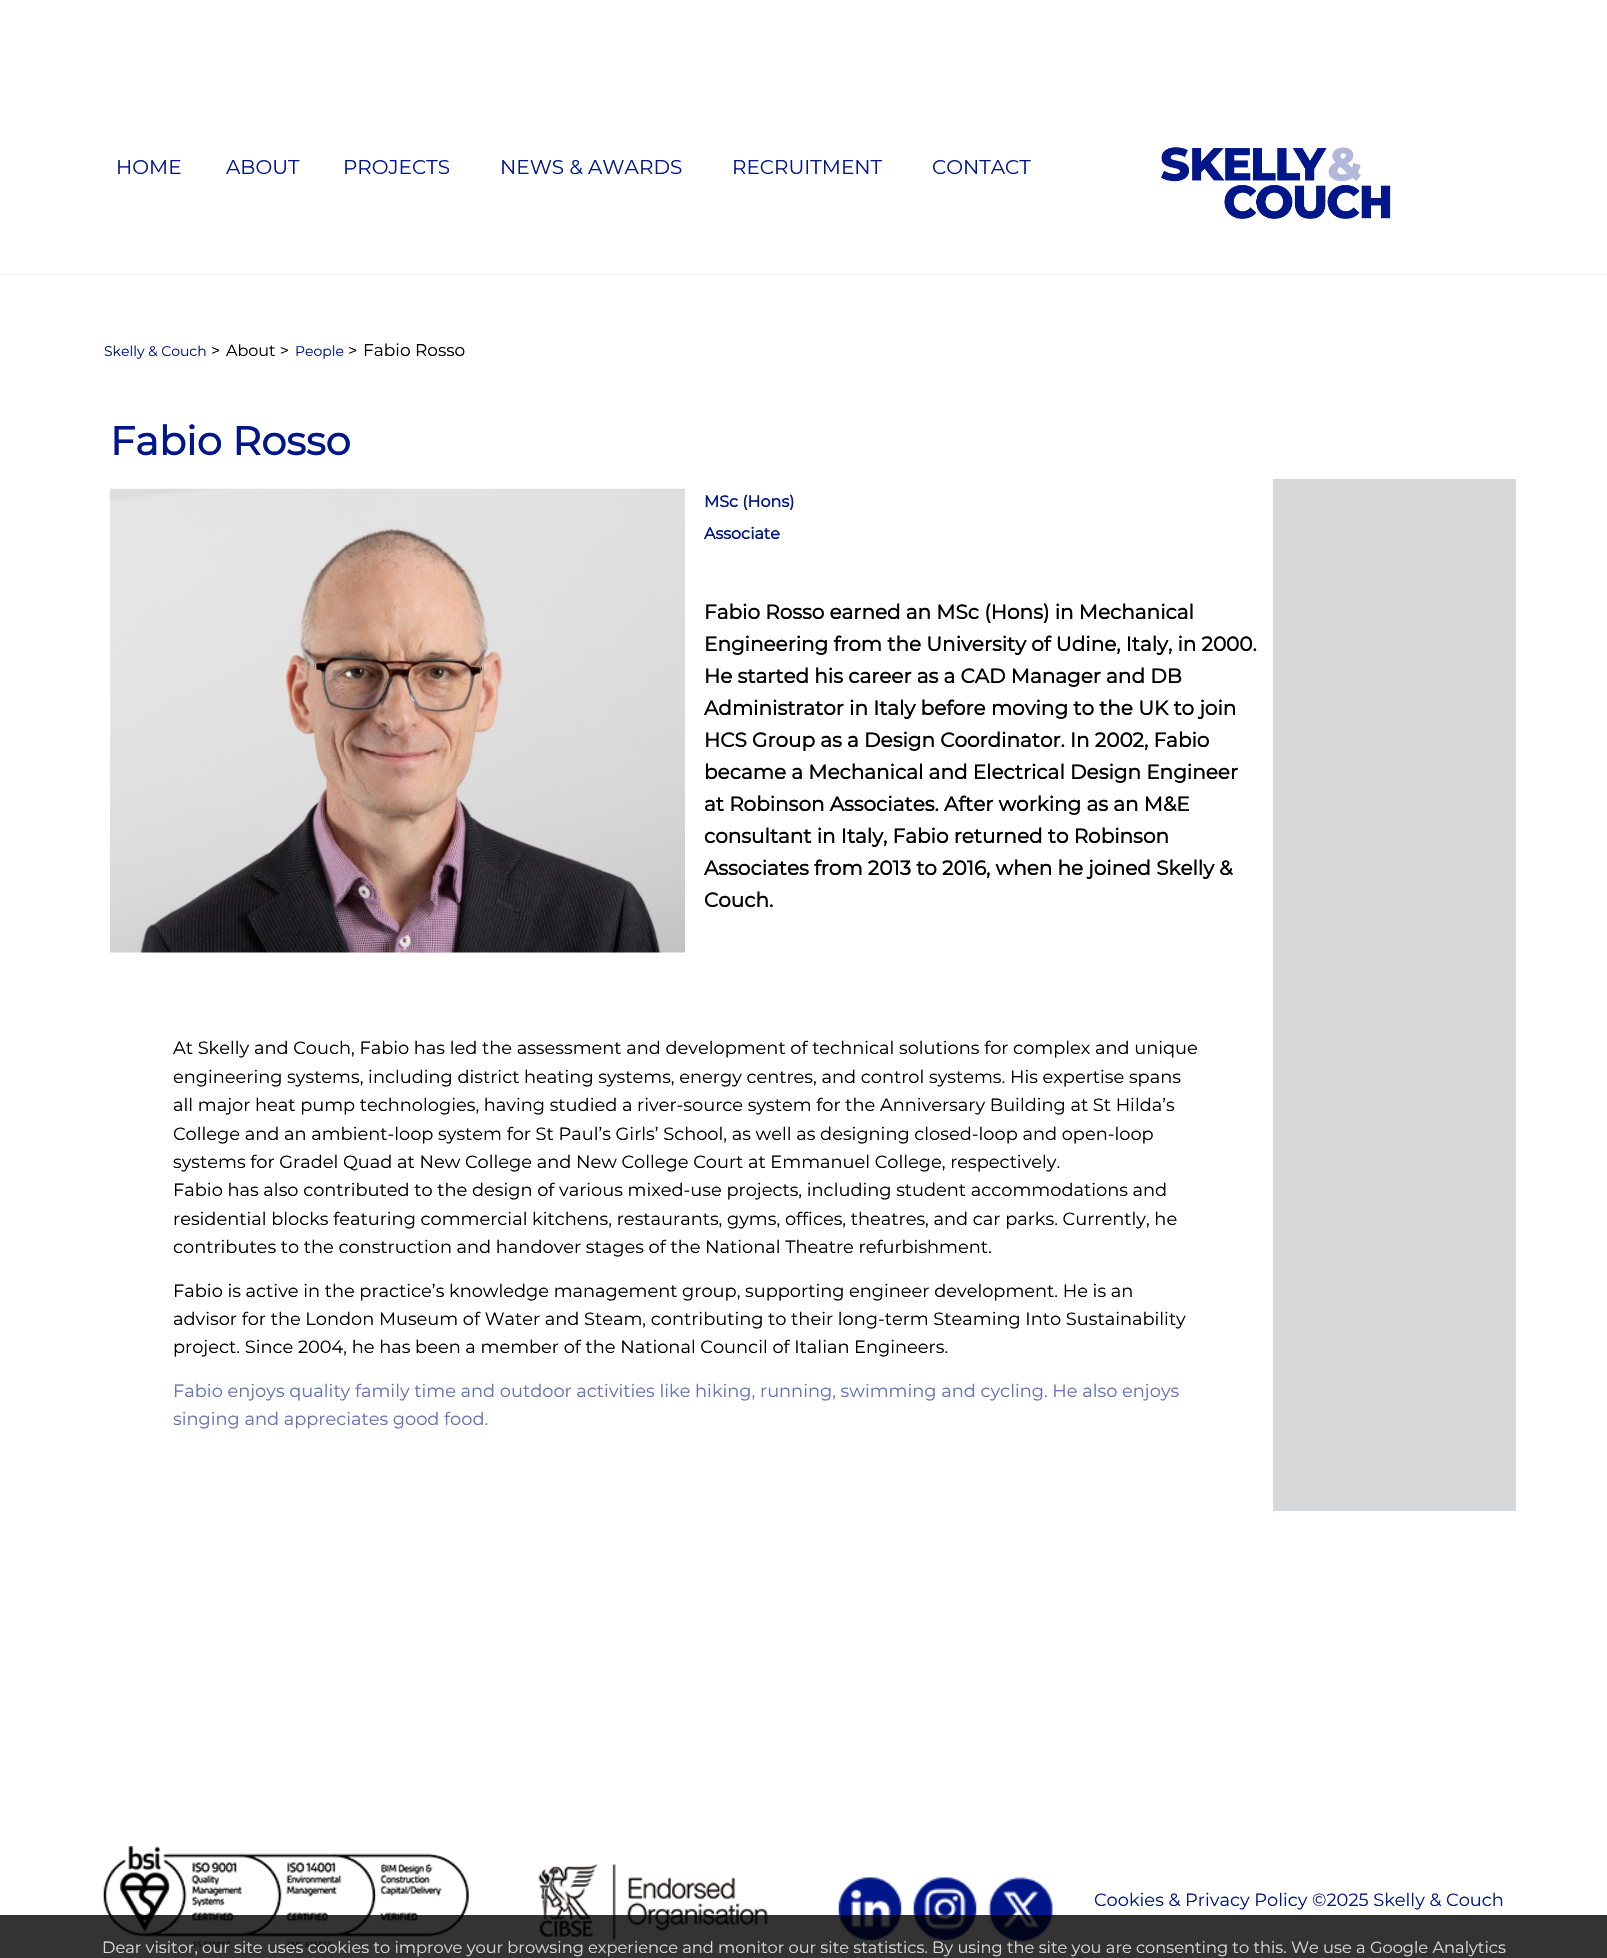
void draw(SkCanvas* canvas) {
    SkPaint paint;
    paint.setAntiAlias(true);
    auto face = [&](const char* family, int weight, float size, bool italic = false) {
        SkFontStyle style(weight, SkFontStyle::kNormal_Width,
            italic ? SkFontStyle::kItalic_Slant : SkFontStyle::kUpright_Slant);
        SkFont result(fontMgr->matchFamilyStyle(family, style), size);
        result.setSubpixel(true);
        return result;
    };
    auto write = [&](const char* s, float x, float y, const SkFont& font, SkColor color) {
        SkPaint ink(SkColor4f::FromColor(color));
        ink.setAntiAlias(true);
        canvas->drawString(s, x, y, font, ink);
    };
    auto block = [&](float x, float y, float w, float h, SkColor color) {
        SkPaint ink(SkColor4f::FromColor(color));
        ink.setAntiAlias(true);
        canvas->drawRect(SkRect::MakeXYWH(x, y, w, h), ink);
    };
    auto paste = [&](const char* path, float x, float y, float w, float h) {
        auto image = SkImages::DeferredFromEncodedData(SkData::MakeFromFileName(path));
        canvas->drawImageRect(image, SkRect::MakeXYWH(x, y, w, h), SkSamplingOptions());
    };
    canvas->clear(SK_ColorWHITE);
    block(0, 274, 1607, 1, SkColorSetRGB(241, 241, 241));
    auto kFont1 = face("Montserrat", 100, 20);
    write("HOME", 116, 174, kFont1, SkColorSetRGB(0, 22, 137));
    write("ABOUT", 226, 174, kFont1, SkColorSetRGB(0, 22, 137));
    write("PROJECTS", 343, 174, kFont1, SkColorSetRGB(0, 22, 137));
    write("NEWS & AWARDS", 500, 174, kFont1, SkColorSetRGB(0, 22, 137));
    write("RECRUITMENT", 732, 174, kFont1, SkColorSetRGB(0, 22, 137));
    write("CONTACT", 932, 174, kFont1, SkColorSetRGB(0, 22, 137));
    paste("pic1.png", 1161, 147, 230, 72);
    auto kFont2 = face("Montserrat", 100, 14);
    write("Skelly & Couch", 104, 356, kFont2, SkColorSetRGB(0, 22, 137));
    auto kFont3 = face("Montserrat", 100, 16);
    write(">", 211, 356, kFont3, SK_ColorBLACK);
    write("About >", 226, 356, kFont3, SK_ColorBLACK);
    write("People", 295, 356, kFont2, SkColorSetRGB(0, 22, 137));
    write(">", 348, 356, kFont3, SK_ColorBLACK);
    auto kFont4 = face("Montserrat", 100, 17);
    write("Fabio Rosso", 363, 356, kFont4, SK_ColorBLACK);
    auto kFont5 = face("Montserrat", 700, 40);
    write("Fabio Rosso", 110, 455, kFont5, SkColorSetRGB(0, 22, 137));
    paste("pic2.png", 110, 488, 575, 465);
    auto kFont6 = face("Montserrat", 700, 16);
    write("MSc (Hons)", 704, 507, kFont6, SkColorSetRGB(0, 22, 137));
    write("Associate", 704, 539, kFont6, SkColorSetRGB(0, 22, 137));
    auto kFont7 = face("Montserrat", 700, 20);
    write("Fabio Rosso earned an MSc (Hons) in Mechanical", 704, 619, kFont7, SK_ColorBLACK);
    write("Engineering from the University of Udine, Italy, in 2000.", 704, 651, kFont7, SK_ColorBLACK);
    write("He started his career as a CAD Manager and DB", 704, 683, kFont7, SK_ColorBLACK);
    write("Administrator in Italy before moving to the UK to join", 704, 715, kFont7, SK_ColorBLACK);
    write("HCS Group as a Design Coordinator. In 2002, Fabio", 704, 747, kFont7, SK_ColorBLACK);
    write("became a Mechanical and Electrical Design Engineer", 704, 779, kFont7, SK_ColorBLACK);
    write("at Robinson Associates. After working as an M&E", 704, 811, kFont7, SK_ColorBLACK);
    write("consultant in Italy, Fabio returned to Robinson", 704, 843, kFont7, SK_ColorBLACK);
    write("Associates from 2013 to 2016, when he joined Skelly &", 704, 875, kFont7, SK_ColorBLACK);
    write("Couch.", 704, 907, kFont7, SK_ColorBLACK);
    auto kFont8 = face("Montserrat", 100, 17.8f);
    write("At Skelly and Couch, Fabio has led the assessment and development of technical solutions for complex and unique", 173, 1054, kFont8, SK_ColorBLACK);
    write("engineering systems, including district heating systems, energy centres, and control systems. His expertise spans", 173, 1083, kFont8, SK_ColorBLACK);
    write("all major heat pump technologies, having studied a river-source system for the Anniversary Building at St Hilda’s", 173, 1111, kFont8, SK_ColorBLACK);
    write("College and an ambient-loop system for St Paul’s Girls’ School, as well as designing closed-loop and open-loop", 173, 1140, kFont8, SK_ColorBLACK);
    write("systems for Gradel Quad at New College and New College Court at Emmanuel College, respectively.", 173, 1168, kFont8, SK_ColorBLACK);
    write("Fabio has also contributed to the design of various mixed-use projects, including student accommodations and", 173, 1196, kFont8, SK_ColorBLACK);
    write("residential blocks featuring commercial kitchens, restaurants, gyms, offices, theatres, and car parks. Currently, he", 173, 1225, kFont8, SK_ColorBLACK);
    write("contributes to the construction and handover stages of the National Theatre refurbishment.", 173, 1253, kFont8, SK_ColorBLACK);
    write("Fabio is active in the practice’s knowledge management group, supporting engineer development. He is an", 173, 1297, kFont8, SK_ColorBLACK);
    write("advisor for the London Museum of Water and Steam, contributing to their long-term Steaming Into Sustainability", 173, 1325, kFont8, SK_ColorBLACK);
    write("project. Since 2004, he has been a member of the National Council of Italian Engineers.", 173, 1353, kFont8, SK_ColorBLACK);
    write("Fabio enjoys quality family time and outdoor activities like hiking, running, swimming and cycling. He also enjoys", 173, 1397, kFont8, SkColorSetRGB(102, 115, 184));
    write("singing and appreciates good food.", 173, 1425, kFont8, SkColorSetRGB(102, 115, 184));
    block(1273, 479, 243, 1032, SkColorSetRGB(215, 216, 217));
    paste("pic3.png", 103, 1846, 366, 102);
    paste("pic4.png", 538, 1864, 230, 76);
    paste("pic5.png", 838, 1877, 64, 63);
    paste("pic6.png", 913, 1877, 64, 63);
    paste("pic7.png", 988, 1877, 65, 65);
    write("Cookies & Privacy Policy ©2025 Skelly & Couch", 1094, 1906, kFont8, SkColorSetRGB(0, 22, 137));
    block(0, 1915, 1607, 43, SkColorSetARGB(204, 0, 0, 0));
    auto kFont9 = face("Montserrat", 100, 16.25f);
    write("Dear visitor, our site uses cookies to improve your browsing experience and monitor our site statistics. By using the site you are consenting to this. We use a Google Analytics", 102, 1953, kFont9, SkColorSetRGB(214, 214, 214));
}
